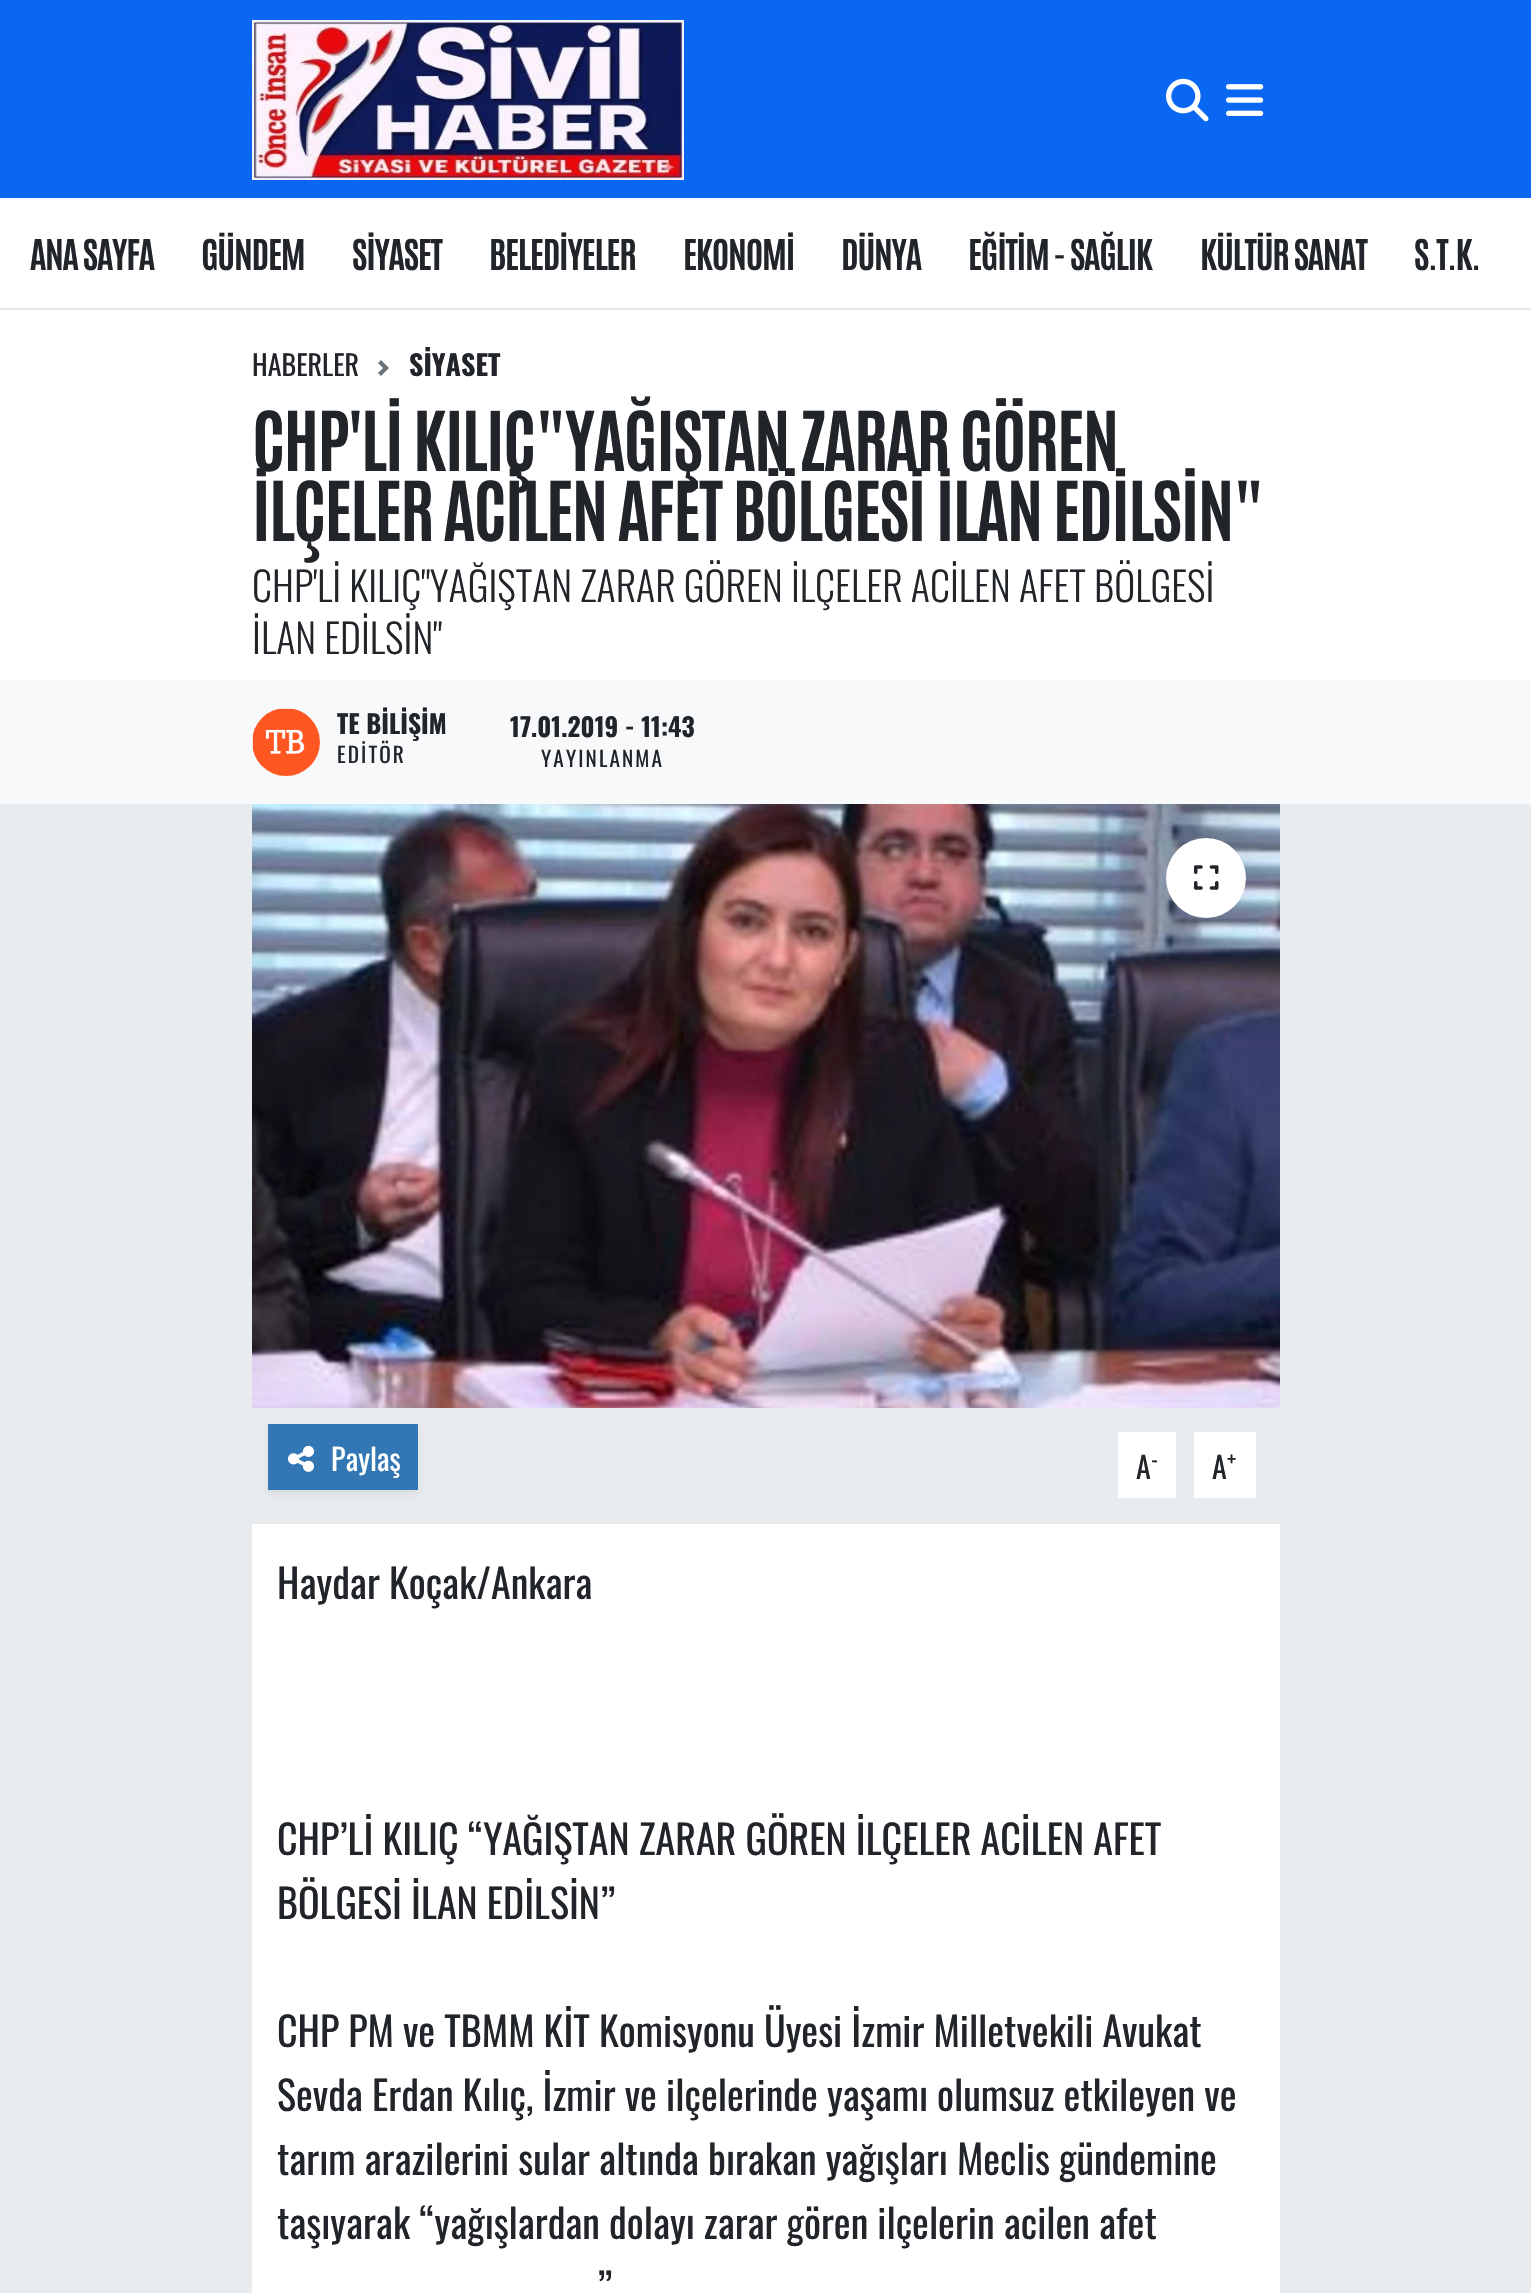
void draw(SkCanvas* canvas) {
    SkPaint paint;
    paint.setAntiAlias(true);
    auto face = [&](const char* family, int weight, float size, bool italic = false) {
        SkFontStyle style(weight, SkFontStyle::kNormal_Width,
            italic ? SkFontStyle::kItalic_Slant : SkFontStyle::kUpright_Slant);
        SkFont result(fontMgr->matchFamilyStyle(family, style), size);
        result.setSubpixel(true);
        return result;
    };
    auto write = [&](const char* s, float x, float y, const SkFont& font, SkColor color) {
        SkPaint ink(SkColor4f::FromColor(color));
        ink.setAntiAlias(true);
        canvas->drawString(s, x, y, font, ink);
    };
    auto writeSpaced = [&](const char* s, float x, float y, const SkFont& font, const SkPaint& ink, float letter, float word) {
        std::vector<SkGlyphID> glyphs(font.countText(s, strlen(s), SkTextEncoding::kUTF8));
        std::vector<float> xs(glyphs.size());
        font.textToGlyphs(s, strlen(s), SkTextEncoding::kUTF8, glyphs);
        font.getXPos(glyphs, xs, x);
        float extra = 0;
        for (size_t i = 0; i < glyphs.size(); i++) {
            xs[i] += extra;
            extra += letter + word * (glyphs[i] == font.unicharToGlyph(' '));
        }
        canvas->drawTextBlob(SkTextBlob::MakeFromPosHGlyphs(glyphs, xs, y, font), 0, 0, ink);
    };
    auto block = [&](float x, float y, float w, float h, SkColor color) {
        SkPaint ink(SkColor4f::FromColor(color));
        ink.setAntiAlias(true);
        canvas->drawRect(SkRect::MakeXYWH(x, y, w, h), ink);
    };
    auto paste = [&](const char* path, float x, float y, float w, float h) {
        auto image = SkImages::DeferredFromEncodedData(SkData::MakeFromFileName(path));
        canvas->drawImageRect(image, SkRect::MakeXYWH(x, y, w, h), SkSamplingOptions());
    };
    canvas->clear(SkColorSetRGB(233, 236, 239));
    block(0, 0, 1531, 198, SkColorSetRGB(10, 103, 242));
    paste("pic1.png", 252, 20, 432, 160);
    paste("pic2.png", 1166, 78, 43, 44);
    paste("pic3.png", 1226, 84, 38, 32);
    block(0, 198, 1531, 110, SK_ColorWHITE);
    block(0, 308, 1531, 2, SkColorSetRGB(230, 230, 230));
    auto kFont1 = face("Antonio", 700, 36);
    paint.setColor(SkColorSetRGB(33, 37, 41));
    writeSpaced("ANA SAYFA", 30, 270, kFont1, paint, -1.25f, 0);
    writeSpaced("GÜNDEM", 201, 270, kFont1, paint, -1.25f, 0);
    writeSpaced("SİYASET", 352, 270, kFont1, paint, -1.25f, 0);
    writeSpaced("BELEDİYELER", 489, 270, kFont1, paint, -1.25f, 0);
    writeSpaced("EKONOMİ", 683, 270, kFont1, paint, -1.25f, 0);
    writeSpaced("DÜNYA", 841, 270, kFont1, paint, -1.25f, 0);
    writeSpaced("EĞİTİM - SAĞLIK", 968, 270, kFont1, paint, -1.25f, 0);
    writeSpaced("KÜLTÜR SANAT", 1200, 270, kFont1, paint, -1.25f, 0);
    writeSpaced("S.T.K.", 1414, 270, kFont1, paint, -1.25f, 0);
    block(0, 310, 1531, 370, SK_ColorWHITE);
    auto kFont2 = face("Oswald", 400, 28);
    write("HABERLER", 252, 376, kFont2, SkColorSetRGB(33, 37, 41));
    paste("pic4.png", 378, 360, 11, 16);
    auto kFont3 = face("Oswald", 700, 28);
    write("SİYASET", 409, 376, kFont3, SkColorSetRGB(33, 37, 41));
    auto kFont4 = face("Antonio", 700, 70);
    writeSpaced("CHP'Lİ KILIÇ\"YAĞIŞTAN ZARAR GÖREN", 252, 471, kFont4, paint, -1.6f, 0);
    writeSpaced("İLÇELER ACİLEN AFET BÖLGESİ İLAN EDİLSİN\"", 252, 541, kFont4, paint, -1.6f, 0);
    auto kFont5 = face("Oswald", 300, 40);
    write("CHP'Lİ KILIÇ\"YAĞIŞTAN ZARAR GÖREN İLÇELER ACİLEN AFET BÖLGESİ", 252, 602, kFont5, SkColorSetRGB(33, 37, 41));
    write("İLAN EDİLSİN\"", 252, 654, kFont5, SkColorSetRGB(33, 37, 41));
    block(0, 680, 1531, 124, SkColorSetRGB(248, 249, 250));
    paste("pic5.png", 252, 708, 68, 68);
    auto kFont6 = face("Oswald", 700, 25.5f);
    write("TE BİLİŞİM", 337, 734, kFont6, SkColorSetRGB(33, 37, 41));
    auto kFont7 = face("Oswald", 400, 21.25f);
    writeSpaced("EDİTÖR", 337, 763, kFont7, paint, 2.1f, 0);
    write("17.01.2019 - 11:43", 510, 737, kFont6, SkColorSetRGB(33, 37, 41));
    writeSpaced("YAYINLANMA", 541, 767, kFont7, paint, 2.1f, 0);
    paste("pic6.png", 252, 804, 1028, 604);
    paint.setColor(SK_ColorWHITE);
    canvas->drawCircle(1206, 878, 40, paint);
    paste("pic7.png", 1194, 865, 25, 25);
    paint.setColor(SkColorSetARGB(18, 0, 0, 0));
    paint.setMaskFilter(SkMaskFilter::MakeBlur(kNormal_SkBlurStyle, 4));
    canvas->drawRect(SkRect::MakeXYWH(268, 1428, 150, 66), paint);
    paint.setMaskFilter(nullptr);
    block(268, 1424, 150, 66, SkColorSetRGB(50, 118, 179));
    paste("pic8.png", 288, 1445, 26, 27);
    auto kFont8 = face("Oswald", 400, 30);
    write("Paylaş", 331, 1471, kFont8, SK_ColorWHITE);
    block(1118, 1432, 58, 66, SK_ColorWHITE);
    write("A", 1136, 1479, kFont8, SkColorSetRGB(33, 37, 41));
    auto kFont9 = face("Oswald", 400, 22);
    write("-", 1151, 1468, kFont9, SkColorSetRGB(33, 37, 41));
    block(1194, 1432, 62, 66, SK_ColorWHITE);
    write("A", 1212, 1479, kFont8, SkColorSetRGB(33, 37, 41));
    write("+", 1227, 1468, kFont9, SkColorSetRGB(33, 37, 41));
    block(252, 1524, 1028, 769, SK_ColorWHITE);
    auto kFont10 = face("Oswald", 400, 40);
    write("Haydar Koçak/Ankara", 277, 1599, kFont10, SkColorSetRGB(33, 37, 41));
    write("CHP’Lİ KILIÇ “YAĞIŞTAN ZARAR GÖREN İLÇELER ACİLEN AFET", 277, 1855, kFont10, SkColorSetRGB(33, 37, 41));
    write("BÖLGESİ İLAN EDİLSİN”", 277, 1919, kFont10, SkColorSetRGB(33, 37, 41));
    paint.setColor(SkColorSetRGB(33, 37, 41));
    writeSpaced("CHP PM ve TBMM KİT Komisyonu Üyesi İzmir Milletvekili Avukat", 277, 2047, kFont10, paint, 0, -0.1f);
    write("Sevda Erdan Kılıç, İzmir ve ilçelerinde yaşamı olumsuz etkileyen ve", 277, 2111, kFont10, SkColorSetRGB(33, 37, 41));
    write("tarım arazilerini sular altında bırakan yağışları Meclis gündemine", 277, 2175, kFont10, SkColorSetRGB(33, 37, 41));
    write("taşıyarak “yağışlardan dolayı zarar gören ilçelerin acilen afet", 277, 2239, kFont10, SkColorSetRGB(33, 37, 41));
    write("”", 597, 2303, kFont10, SkColorSetRGB(33, 37, 41));
}
